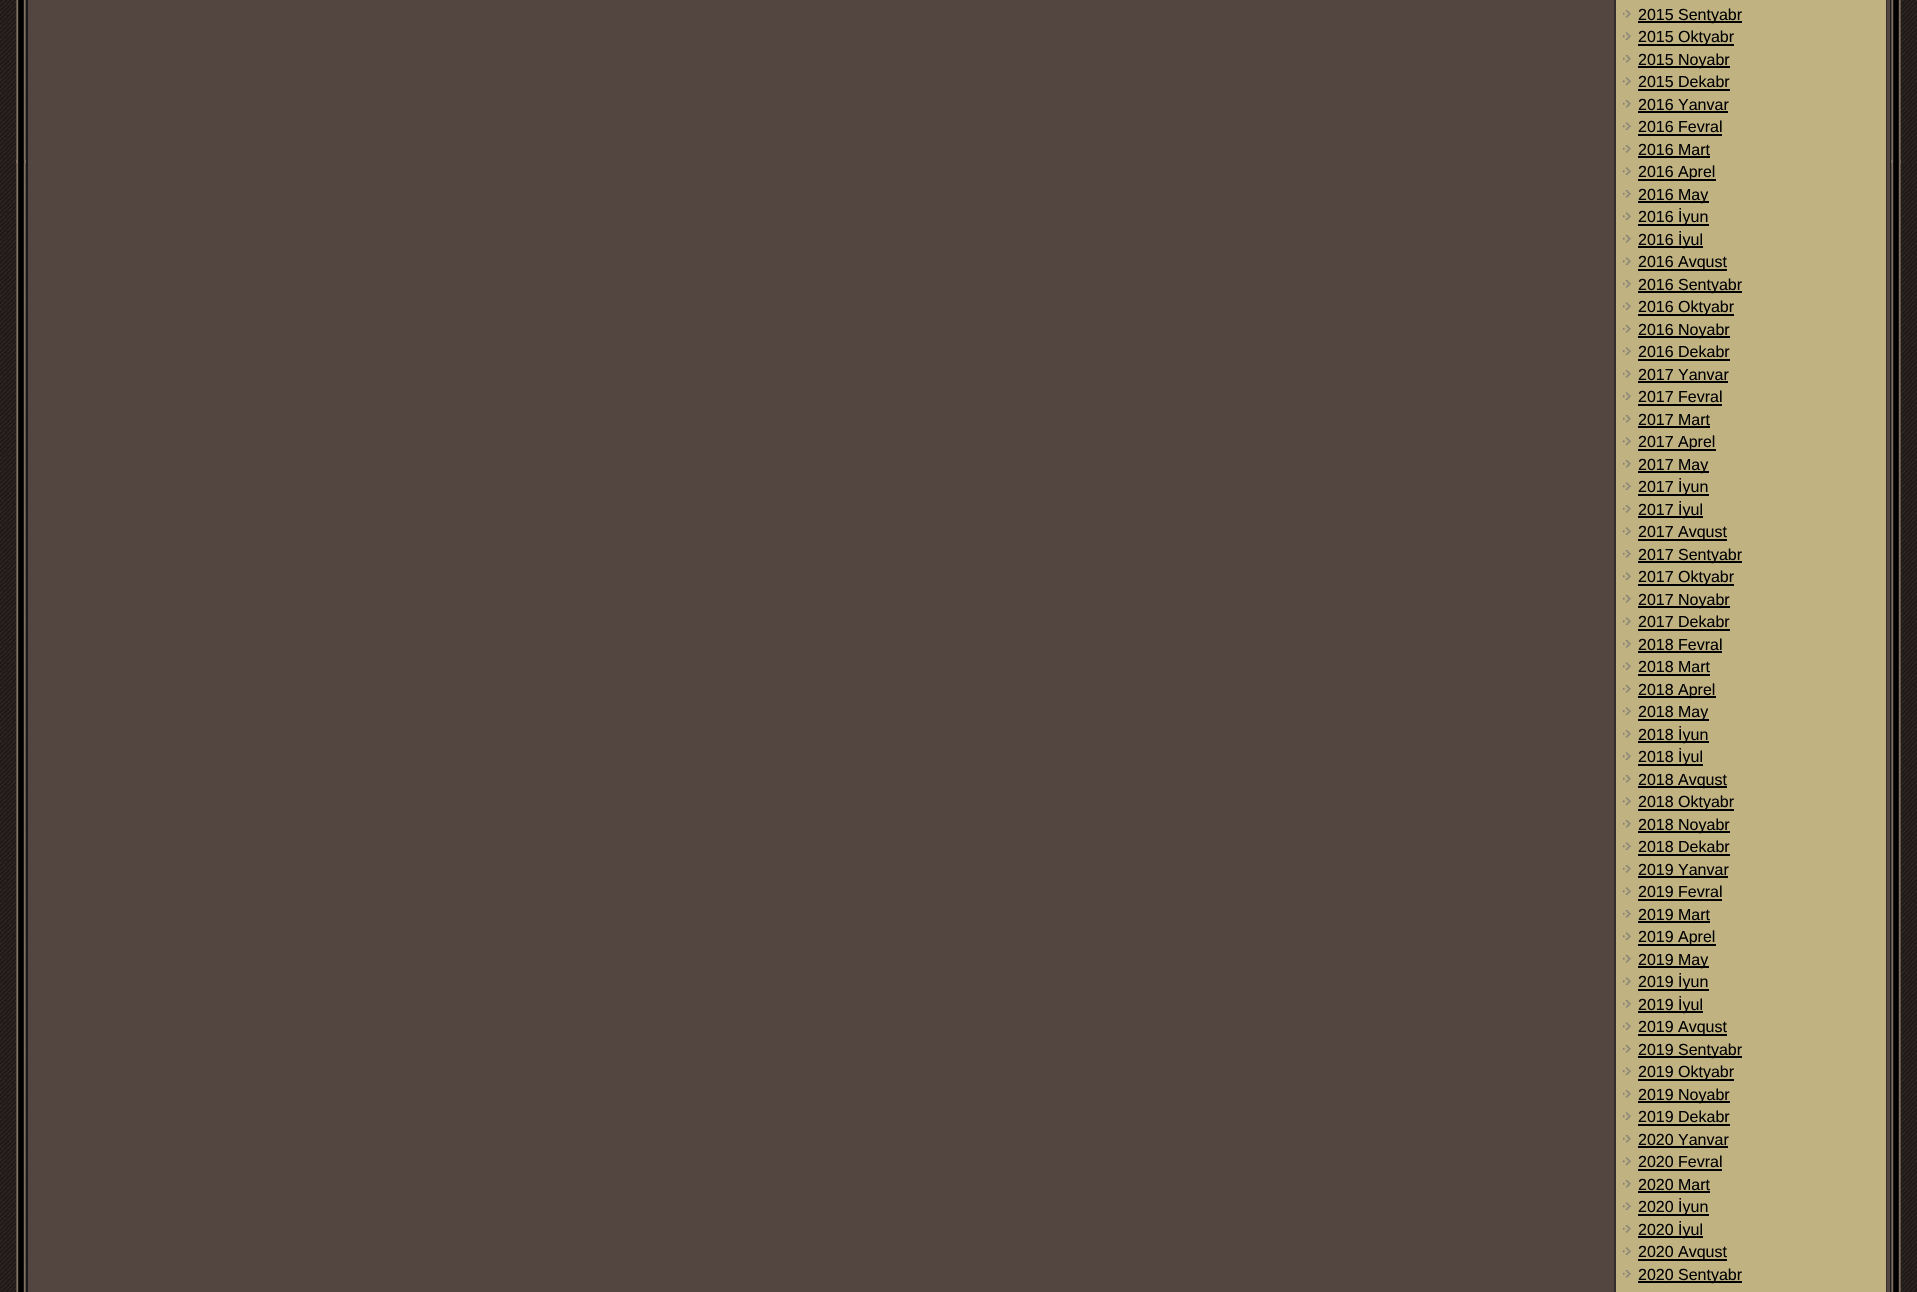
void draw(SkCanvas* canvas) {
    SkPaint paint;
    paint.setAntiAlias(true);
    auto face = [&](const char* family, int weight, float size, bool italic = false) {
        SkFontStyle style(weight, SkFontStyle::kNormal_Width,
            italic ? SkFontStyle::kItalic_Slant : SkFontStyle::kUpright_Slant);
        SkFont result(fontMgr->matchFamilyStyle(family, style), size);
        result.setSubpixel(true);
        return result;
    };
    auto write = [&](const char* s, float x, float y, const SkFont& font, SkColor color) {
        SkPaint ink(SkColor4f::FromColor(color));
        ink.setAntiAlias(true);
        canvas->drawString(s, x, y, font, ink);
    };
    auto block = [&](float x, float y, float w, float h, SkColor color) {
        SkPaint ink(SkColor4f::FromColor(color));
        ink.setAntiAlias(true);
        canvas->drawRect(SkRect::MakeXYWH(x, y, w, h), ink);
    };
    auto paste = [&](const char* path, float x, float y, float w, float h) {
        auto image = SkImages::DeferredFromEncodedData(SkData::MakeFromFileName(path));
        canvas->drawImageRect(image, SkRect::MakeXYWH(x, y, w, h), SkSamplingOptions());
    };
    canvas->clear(SK_ColorWHITE);
    paste("pic1.png", 0, 0, 1917, 1292);
    paste("pic2.png", 16, 0, 10, 1292);
    paste("pic3.png", 16, 160, 10, 3);
    paint.setColor(SkColorSetRGB(83, 70, 64));
    canvas->drawRect(SkRect::MakeXYWH(27, -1, 1864, 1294), paint);
    paint.setStyle(SkPaint::kStroke_Style);
    paint.setStrokeWidth(2);
    paint.setColor(SkColorSetRGB(26, 26, 26));
    canvas->drawRect(SkRect::MakeXYWH(27, -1, 1864, 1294), paint);
    paint.setColor(SkColorSetRGB(53, 46, 44));
    canvas->drawRect(SkRect::MakeXYWH(1615, -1, 271, 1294), paint);
    block(1616, 0, 270, 1292, SkColorSetRGB(192, 178, 129));
    paste("pic4.png", 1623, 10, 8, 8);
    block(1638, 21, 104, 2, SK_ColorBLACK);
    auto kFont1 = face("Liberation Sans", 400, 16);
    write("2015 Sentyabr", 1638, 20, kFont1, SK_ColorBLACK);
    paste("pic5.png", 1623, 32, 8, 8);
    block(1638, 44, 96, 2, SK_ColorBLACK);
    write("2015 Oktyabr", 1638, 42, kFont1, SK_ColorBLACK);
    paste("pic4.png", 1623, 55, 8, 8);
    block(1638, 66, 92, 2, SK_ColorBLACK);
    write("2015 Noyabr", 1638, 65, kFont1, SK_ColorBLACK);
    paste("pic5.png", 1623, 77, 8, 8);
    write("2015 Dekabr", 1638, 87, kFont1, SK_ColorBLACK);
    block(1638, 89, 92, 2, SK_ColorBLACK);
    paste("pic4.png", 1623, 100, 8, 8);
    write("2016 Yanvar", 1638, 110, kFont1, SK_ColorBLACK);
    block(1638, 111, 90, 2, SK_ColorBLACK);
    paste("pic5.png", 1623, 122, 8, 8);
    write("2016 Fevral", 1638, 132, kFont1, SK_ColorBLACK);
    block(1638, 134, 84, 2, SK_ColorBLACK);
    paste("pic4.png", 1623, 145, 8, 8);
    write("2016 Mart", 1638, 155, kFont1, SK_ColorBLACK);
    block(1638, 156, 72, 2, SK_ColorBLACK);
    paste("pic5.png", 1623, 167, 8, 8);
    block(1638, 179, 78, 2, SK_ColorBLACK);
    write("2016 Aprel", 1638, 177, kFont1, SK_ColorBLACK);
    paste("pic4.png", 1623, 190, 8, 8);
    block(1638, 201, 71, 2, SK_ColorBLACK);
    write("2016 May", 1638, 200, kFont1, SK_ColorBLACK);
    paste("pic5.png", 1623, 212, 8, 8);
    block(1638, 224, 71, 2, SK_ColorBLACK);
    write("2016 İyun", 1638, 222, kFont1, SK_ColorBLACK);
    paste("pic4.png", 1623, 235, 8, 8);
    block(1638, 246, 65, 2, SK_ColorBLACK);
    write("2016 İyul", 1638, 245, kFont1, SK_ColorBLACK);
    paste("pic5.png", 1623, 257, 8, 8);
    block(1638, 269, 89, 2, SK_ColorBLACK);
    write("2016 Avqust", 1638, 267, kFont1, SK_ColorBLACK);
    paste("pic4.png", 1623, 280, 8, 8);
    block(1638, 291, 104, 2, SK_ColorBLACK);
    write("2016 Sentyabr", 1638, 290, kFont1, SK_ColorBLACK);
    paste("pic5.png", 1623, 302, 8, 8);
    block(1638, 314, 96, 2, SK_ColorBLACK);
    write("2016 Oktyabr", 1638, 312, kFont1, SK_ColorBLACK);
    paste("pic4.png", 1623, 325, 8, 8);
    block(1638, 336, 92, 2, SK_ColorBLACK);
    write("2016 Noyabr", 1638, 335, kFont1, SK_ColorBLACK);
    paste("pic5.png", 1623, 347, 8, 8);
    write("2016 Dekabr", 1638, 357, kFont1, SK_ColorBLACK);
    block(1638, 359, 92, 2, SK_ColorBLACK);
    paste("pic4.png", 1623, 370, 8, 8);
    write("2017 Yanvar", 1638, 380, kFont1, SK_ColorBLACK);
    block(1638, 381, 90, 2, SK_ColorBLACK);
    paste("pic5.png", 1623, 392, 8, 8);
    write("2017 Fevral", 1638, 402, kFont1, SK_ColorBLACK);
    block(1638, 404, 84, 2, SK_ColorBLACK);
    paste("pic4.png", 1623, 415, 8, 8);
    write("2017 Mart", 1638, 425, kFont1, SK_ColorBLACK);
    block(1638, 426, 72, 2, SK_ColorBLACK);
    paste("pic5.png", 1623, 437, 8, 8);
    block(1638, 449, 78, 2, SK_ColorBLACK);
    write("2017 Aprel", 1638, 447, kFont1, SK_ColorBLACK);
    paste("pic4.png", 1623, 460, 8, 8);
    block(1638, 471, 71, 2, SK_ColorBLACK);
    write("2017 May", 1638, 470, kFont1, SK_ColorBLACK);
    paste("pic5.png", 1623, 482, 8, 8);
    block(1638, 494, 71, 2, SK_ColorBLACK);
    write("2017 İyun", 1638, 492, kFont1, SK_ColorBLACK);
    paste("pic4.png", 1623, 505, 8, 8);
    block(1638, 516, 65, 2, SK_ColorBLACK);
    write("2017 İyul", 1638, 515, kFont1, SK_ColorBLACK);
    paste("pic5.png", 1623, 527, 8, 8);
    block(1638, 539, 89, 2, SK_ColorBLACK);
    write("2017 Avqust", 1638, 537, kFont1, SK_ColorBLACK);
    paste("pic4.png", 1623, 550, 8, 8);
    block(1638, 561, 104, 2, SK_ColorBLACK);
    write("2017 Sentyabr", 1638, 560, kFont1, SK_ColorBLACK);
    paste("pic5.png", 1623, 572, 8, 8);
    block(1638, 584, 96, 2, SK_ColorBLACK);
    write("2017 Oktyabr", 1638, 582, kFont1, SK_ColorBLACK);
    paste("pic4.png", 1623, 595, 8, 8);
    block(1638, 606, 92, 2, SK_ColorBLACK);
    write("2017 Noyabr", 1638, 605, kFont1, SK_ColorBLACK);
    paste("pic5.png", 1623, 617, 8, 8);
    write("2017 Dekabr", 1638, 627, kFont1, SK_ColorBLACK);
    block(1638, 629, 92, 2, SK_ColorBLACK);
    paste("pic4.png", 1623, 640, 8, 8);
    write("2018 Fevral", 1638, 650, kFont1, SK_ColorBLACK);
    block(1638, 651, 84, 2, SK_ColorBLACK);
    paste("pic5.png", 1623, 662, 8, 8);
    write("2018 Mart", 1638, 672, kFont1, SK_ColorBLACK);
    block(1638, 674, 72, 2, SK_ColorBLACK);
    paste("pic4.png", 1623, 685, 8, 8);
    block(1638, 696, 78, 2, SK_ColorBLACK);
    write("2018 Aprel", 1638, 695, kFont1, SK_ColorBLACK);
    paste("pic5.png", 1623, 707, 8, 8);
    block(1638, 719, 71, 2, SK_ColorBLACK);
    write("2018 May", 1638, 717, kFont1, SK_ColorBLACK);
    paste("pic4.png", 1623, 730, 8, 8);
    block(1638, 741, 71, 2, SK_ColorBLACK);
    write("2018 İyun", 1638, 740, kFont1, SK_ColorBLACK);
    paste("pic5.png", 1623, 752, 8, 8);
    block(1638, 764, 65, 2, SK_ColorBLACK);
    write("2018 İyul", 1638, 762, kFont1, SK_ColorBLACK);
    paste("pic4.png", 1623, 775, 8, 8);
    block(1638, 786, 89, 2, SK_ColorBLACK);
    write("2018 Avqust", 1638, 785, kFont1, SK_ColorBLACK);
    paste("pic5.png", 1623, 797, 8, 8);
    block(1638, 809, 96, 2, SK_ColorBLACK);
    write("2018 Oktyabr", 1638, 807, kFont1, SK_ColorBLACK);
    paste("pic4.png", 1623, 820, 8, 8);
    block(1638, 831, 92, 2, SK_ColorBLACK);
    write("2018 Noyabr", 1638, 830, kFont1, SK_ColorBLACK);
    paste("pic5.png", 1623, 842, 8, 8);
    write("2018 Dekabr", 1638, 852, kFont1, SK_ColorBLACK);
    block(1638, 854, 92, 2, SK_ColorBLACK);
    paste("pic4.png", 1623, 865, 8, 8);
    write("2019 Yanvar", 1638, 875, kFont1, SK_ColorBLACK);
    block(1638, 876, 90, 2, SK_ColorBLACK);
    paste("pic5.png", 1623, 887, 8, 8);
    write("2019 Fevral", 1638, 897, kFont1, SK_ColorBLACK);
    block(1638, 899, 84, 2, SK_ColorBLACK);
    paste("pic4.png", 1623, 910, 8, 8);
    write("2019 Mart", 1638, 920, kFont1, SK_ColorBLACK);
    block(1638, 921, 72, 2, SK_ColorBLACK);
    paste("pic5.png", 1623, 932, 8, 8);
    block(1638, 944, 78, 2, SK_ColorBLACK);
    write("2019 Aprel", 1638, 942, kFont1, SK_ColorBLACK);
    paste("pic4.png", 1623, 955, 8, 8);
    block(1638, 966, 71, 2, SK_ColorBLACK);
    write("2019 May", 1638, 965, kFont1, SK_ColorBLACK);
    paste("pic5.png", 1623, 977, 8, 8);
    block(1638, 989, 71, 2, SK_ColorBLACK);
    write("2019 İyun", 1638, 987, kFont1, SK_ColorBLACK);
    paste("pic4.png", 1623, 1000, 8, 8);
    block(1638, 1011, 65, 2, SK_ColorBLACK);
    write("2019 İyul", 1638, 1010, kFont1, SK_ColorBLACK);
    paste("pic5.png", 1623, 1022, 8, 8);
    block(1638, 1034, 89, 2, SK_ColorBLACK);
    write("2019 Avqust", 1638, 1032, kFont1, SK_ColorBLACK);
    paste("pic4.png", 1623, 1045, 8, 8);
    block(1638, 1056, 104, 2, SK_ColorBLACK);
    write("2019 Sentyabr", 1638, 1055, kFont1, SK_ColorBLACK);
    paste("pic5.png", 1623, 1067, 8, 8);
    block(1638, 1079, 96, 2, SK_ColorBLACK);
    write("2019 Oktyabr", 1638, 1077, kFont1, SK_ColorBLACK);
    paste("pic4.png", 1623, 1090, 8, 8);
    block(1638, 1101, 92, 2, SK_ColorBLACK);
    write("2019 Noyabr", 1638, 1100, kFont1, SK_ColorBLACK);
    paste("pic5.png", 1623, 1112, 8, 8);
    write("2019 Dekabr", 1638, 1122, kFont1, SK_ColorBLACK);
    block(1638, 1124, 92, 2, SK_ColorBLACK);
    paste("pic4.png", 1623, 1135, 8, 8);
    write("2020 Yanvar", 1638, 1145, kFont1, SK_ColorBLACK);
    block(1638, 1146, 90, 2, SK_ColorBLACK);
    paste("pic5.png", 1623, 1157, 8, 8);
    write("2020 Fevral", 1638, 1167, kFont1, SK_ColorBLACK);
    block(1638, 1169, 84, 2, SK_ColorBLACK);
    paste("pic4.png", 1623, 1180, 8, 8);
    write("2020 Mart", 1638, 1190, kFont1, SK_ColorBLACK);
    block(1638, 1191, 72, 2, SK_ColorBLACK);
    paste("pic5.png", 1623, 1202, 8, 8);
    block(1638, 1214, 71, 2, SK_ColorBLACK);
    write("2020 İyun", 1638, 1212, kFont1, SK_ColorBLACK);
    paste("pic4.png", 1623, 1225, 8, 8);
    block(1638, 1236, 65, 2, SK_ColorBLACK);
    write("2020 İyul", 1638, 1235, kFont1, SK_ColorBLACK);
    paste("pic5.png", 1623, 1247, 8, 8);
    block(1638, 1259, 89, 2, SK_ColorBLACK);
    write("2020 Avqust", 1638, 1257, kFont1, SK_ColorBLACK);
    paste("pic4.png", 1623, 1270, 8, 8);
    block(1638, 1281, 104, 2, SK_ColorBLACK);
    write("2020 Sentyabr", 1638, 1280, kFont1, SK_ColorBLACK);
    paste("pic6.png", 1891, 0, 10, 1292);
    paste("pic7.png", 1891, 160, 10, 3);
}
